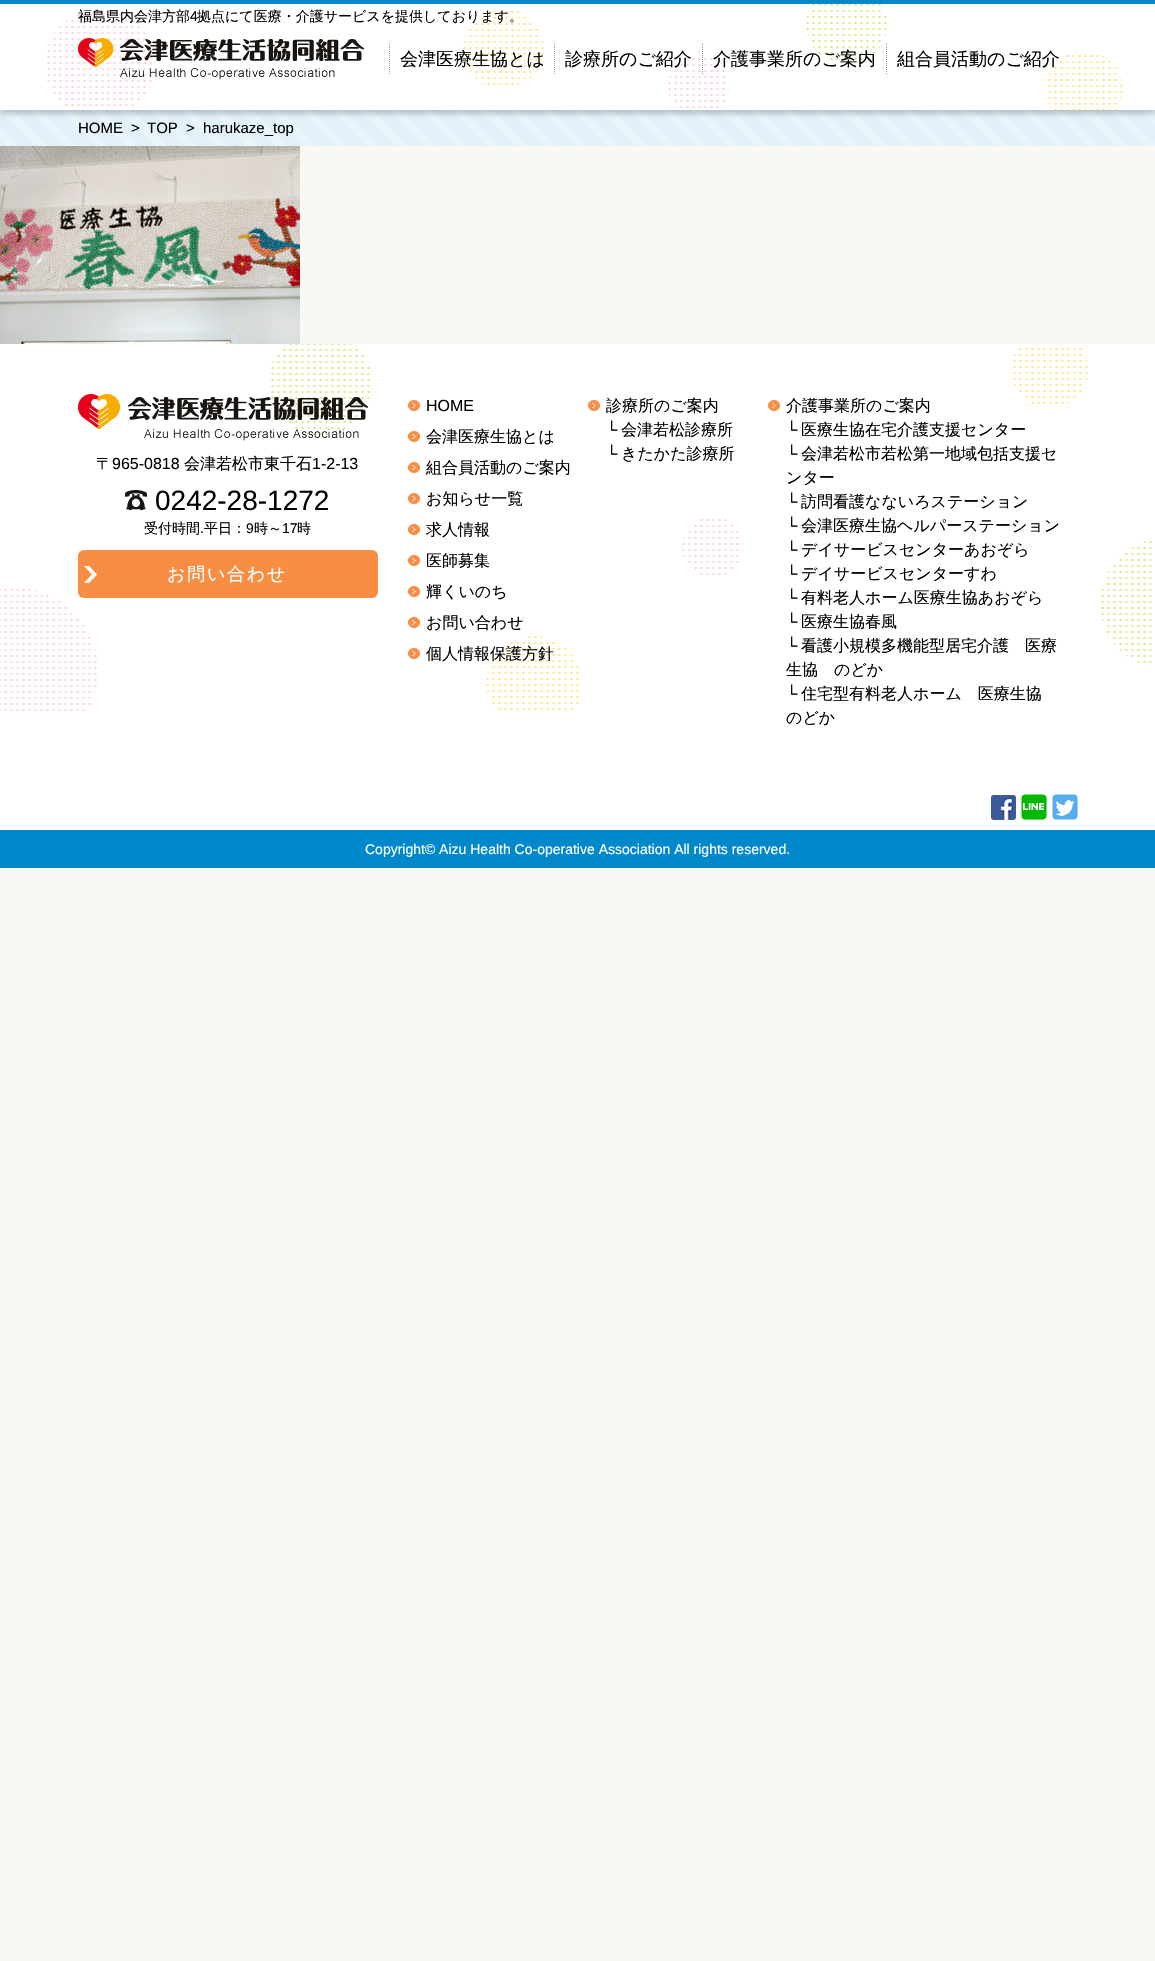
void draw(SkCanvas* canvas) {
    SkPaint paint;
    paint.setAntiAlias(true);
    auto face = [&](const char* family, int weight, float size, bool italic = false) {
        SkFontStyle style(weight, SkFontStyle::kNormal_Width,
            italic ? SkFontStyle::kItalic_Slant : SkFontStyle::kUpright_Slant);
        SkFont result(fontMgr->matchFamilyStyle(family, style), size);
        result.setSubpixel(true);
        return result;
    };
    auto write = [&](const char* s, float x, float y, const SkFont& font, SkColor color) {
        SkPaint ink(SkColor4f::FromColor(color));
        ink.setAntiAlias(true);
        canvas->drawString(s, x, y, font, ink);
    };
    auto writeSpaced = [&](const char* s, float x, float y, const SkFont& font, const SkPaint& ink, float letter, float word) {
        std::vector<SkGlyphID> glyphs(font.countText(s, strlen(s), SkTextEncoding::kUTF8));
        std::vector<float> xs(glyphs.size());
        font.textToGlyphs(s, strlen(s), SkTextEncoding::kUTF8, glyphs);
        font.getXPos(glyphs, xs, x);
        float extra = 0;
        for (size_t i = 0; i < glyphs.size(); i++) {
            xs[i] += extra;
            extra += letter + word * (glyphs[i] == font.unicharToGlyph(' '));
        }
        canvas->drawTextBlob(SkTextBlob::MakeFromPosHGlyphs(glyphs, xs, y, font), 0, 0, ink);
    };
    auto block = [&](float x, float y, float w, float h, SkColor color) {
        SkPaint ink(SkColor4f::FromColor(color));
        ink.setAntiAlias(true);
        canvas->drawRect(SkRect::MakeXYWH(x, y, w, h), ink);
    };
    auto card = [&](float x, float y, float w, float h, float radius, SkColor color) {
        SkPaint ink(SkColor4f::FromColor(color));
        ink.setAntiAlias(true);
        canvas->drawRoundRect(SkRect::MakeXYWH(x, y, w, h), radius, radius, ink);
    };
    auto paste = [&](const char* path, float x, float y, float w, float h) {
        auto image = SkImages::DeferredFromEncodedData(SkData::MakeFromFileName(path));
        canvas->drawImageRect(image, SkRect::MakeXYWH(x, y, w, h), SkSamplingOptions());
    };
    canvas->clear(SkColorSetRGB(250, 248, 243));
    paste("pic3.png", 0, 110, 1155, 36);
    paint.setColor(SkColorSetARGB(51, 0, 0, 0));
    paint.setMaskFilter(SkMaskFilter::MakeBlur(kNormal_SkBlurStyle, 2.5f));
    canvas->drawRect(SkRect::MakeXYWH(0, 4, 1155, 110), paint);
    paint.setMaskFilter(nullptr);
    block(0, 4, 1155, 106, SK_ColorWHITE);
    paste("pic1.png", 47, 4, 1076, 106);
    block(0, 0, 1155, 4, SkColorSetRGB(0, 136, 203));
    auto kFont1 = face("WenQuanYi Zen Hei", 500, 14);
    write("福島県内会津方部", 78, 21, kFont1, SK_ColorBLACK);
    auto kFont2 = face("Liberation Sans", 400, 14);
    write("4", 190, 21, kFont2, SK_ColorBLACK);
    write("拠点にて医療・介護サービスを提供しております。", 197, 21, kFont1, SK_ColorBLACK);
    paste("pic2.png", 78, 38, 286, 42);
    paint.setStyle(SkPaint::kStroke_Style);
    paint.setStrokeWidth(1);
    paint.setColor(SkColorSetRGB(153, 153, 153));
    paint.setPathEffect(SkDashPathEffect::Make({{1, 1}}, 0));
    canvas->drawPath(SkPathBuilder().moveTo(389.5f, 43).lineTo(389.5f, 75).detach(), paint);
    paint.setPathEffect(nullptr);
    auto kFont3 = face("WenQuanYi Zen Hei", 500, 18);
    write("会津医療生協とは", 400, 65, kFont3, SK_ColorBLACK);
    paint.setPathEffect(SkDashPathEffect::Make({{1, 1}}, 0));
    canvas->drawPath(SkPathBuilder().moveTo(554.5f, 43).lineTo(554.5f, 75).detach(), paint);
    paint.setPathEffect(nullptr);
    write("診療所のご紹介", 565, 65, kFont3, SK_ColorBLACK);
    paint.setPathEffect(SkDashPathEffect::Make({{1, 1}}, 0));
    canvas->drawPath(SkPathBuilder().moveTo(702.5f, 43).lineTo(702.5f, 75).detach(), paint);
    paint.setPathEffect(nullptr);
    write("介護事業所のご案内", 713, 65, kFont3, SK_ColorBLACK);
    paint.setPathEffect(SkDashPathEffect::Make({{1, 1}}, 0));
    canvas->drawPath(SkPathBuilder().moveTo(886.5f, 43).lineTo(886.5f, 75).detach(), paint);
    paint.setPathEffect(nullptr);
    write("組合員活動のご紹介", 897, 65, kFont3, SK_ColorBLACK);
    auto kFont4 = face("Liberation Sans", 400, 15);
    write("HOME", 78, 133, kFont4, SK_ColorBLACK);
    write(">", 131, 133, kFont4, SK_ColorBLACK);
    write("TOP", 147, 133, kFont4, SK_ColorBLACK);
    write(">", 186, 133, kFont4, SK_ColorBLACK);
    write("harukaze_top", 203, 133, kFont4, SK_ColorBLACK);
    paste("pic4.png", 0, 146, 300, 198);
    block(0, 344, 1155, 486, SK_ColorWHITE);
    paste("pic5.png", 0, 344, 1152, 367);
    paste("pic6.png", 78, 394, 290, 47);
    auto kFont5 = face("WenQuanYi Zen Hei", 500, 16);
    write("〒", 96, 469, kFont5, SK_ColorBLACK);
    auto kFont6 = face("Liberation Sans", 400, 16);
    write("965-0818", 112, 469, kFont6, SK_ColorBLACK);
    write("会津若松市東千石", 184, 469, kFont5, SK_ColorBLACK);
    write("1-2-13", 312, 469, kFont6, SK_ColorBLACK);
    paste("pic7.png", 125, 490, 22, 20);
    auto kFont7 = face("Liberation Sans", 400, 28);
    write("0242-28-1272", 155, 510, kFont7, SK_ColorBLACK);
    write("受付時間", 144, 533, kFont1, SK_ColorBLACK);
    write(".", 200, 533, kFont2, SK_ColorBLACK);
    write("平日：", 204, 533, kFont1, SK_ColorBLACK);
    write("9", 246, 533, kFont2, SK_ColorBLACK);
    write("時～", 254, 533, kFont1, SK_ColorBLACK);
    write("17", 282, 533, kFont2, SK_ColorBLACK);
    write("時", 297, 533, kFont1, SK_ColorBLACK);
    card(78, 550, 300, 48, 6, SkColorSetRGB(248, 141, 68));
    paste("pic8.png", 84, 566, 13, 17);
    paint.setStyle(SkPaint::kFill_Style);
    paint.setColor(SK_ColorWHITE);
    writeSpaced("お問い合わせ", 167, 580, kFont3, paint, 1.75f, 0);
    paste("pic9.png", 408, 400, 12, 11);
    write("HOME", 426, 411, kFont6, SK_ColorBLACK);
    paste("pic9.png", 408, 431, 12, 11);
    write("会津医療生協とは", 426, 442, kFont5, SK_ColorBLACK);
    paste("pic9.png", 408, 462, 12, 11);
    write("組合員活動のご案内", 426, 473, kFont5, SK_ColorBLACK);
    paste("pic9.png", 408, 493, 12, 11);
    write("お知らせ一覧", 426, 504, kFont5, SK_ColorBLACK);
    paste("pic9.png", 408, 524, 12, 11);
    write("求人情報", 426, 535, kFont5, SK_ColorBLACK);
    paste("pic9.png", 408, 555, 12, 11);
    write("医師募集", 426, 566, kFont5, SK_ColorBLACK);
    paste("pic9.png", 408, 586, 12, 11);
    write("輝くいのち", 426, 597, kFont5, SK_ColorBLACK);
    paste("pic9.png", 408, 617, 12, 11);
    write("お問い合わせ", 426, 628, kFont5, SK_ColorBLACK);
    paste("pic9.png", 408, 648, 12, 11);
    write("個人情報保護方針", 426, 659, kFont5, SK_ColorBLACK);
    paste("pic9.png", 588, 400, 12, 11);
    write("診療所のご案内", 606, 411, kFont5, SK_ColorBLACK);
    write("└", 606, 435, kFont6, SK_ColorBLACK);
    write("会津若松診療所", 621, 435, kFont5, SK_ColorBLACK);
    write("└", 606, 459, kFont6, SK_ColorBLACK);
    write("きたかた診療所", 621, 459, kFont5, SK_ColorBLACK);
    paste("pic10.png", 768, 400, 12, 11);
    write("介護事業所のご案内", 786, 411, kFont5, SK_ColorBLACK);
    write("└", 786, 435, kFont6, SK_ColorBLACK);
    write("医療生協在宅介護支援センター", 801, 435, kFont5, SK_ColorBLACK);
    write("└", 786, 459, kFont6, SK_ColorBLACK);
    write("会津若松市若松第一地域包括支援セ", 801, 459, kFont5, SK_ColorBLACK);
    write("ンター", 786, 483, kFont5, SK_ColorBLACK);
    write("└", 786, 507, kFont6, SK_ColorBLACK);
    write("訪問看護なないろステーション", 801, 507, kFont5, SK_ColorBLACK);
    write("└", 786, 531, kFont6, SK_ColorBLACK);
    write("会津医療生協ヘルパーステーション", 801, 531, kFont5, SK_ColorBLACK);
    write("└", 786, 555, kFont6, SK_ColorBLACK);
    write("デイサービスセンターあおぞら", 801, 555, kFont5, SK_ColorBLACK);
    write("└", 786, 579, kFont6, SK_ColorBLACK);
    write("デイサービスセンターすわ", 801, 579, kFont5, SK_ColorBLACK);
    write("└", 786, 603, kFont6, SK_ColorBLACK);
    write("有料老人ホーム医療生協あおぞら", 801, 603, kFont5, SK_ColorBLACK);
    write("└", 786, 627, kFont6, SK_ColorBLACK);
    write("医療生協春風", 801, 627, kFont5, SK_ColorBLACK);
    write("└", 786, 651, kFont6, SK_ColorBLACK);
    write("看護小規模多機能型居宅介護　医療", 801, 651, kFont5, SK_ColorBLACK);
    write("生協　のどか", 786, 675, kFont5, SK_ColorBLACK);
    write("└", 786, 699, kFont6, SK_ColorBLACK);
    write("住宅型有料老人ホーム　医療生協", 801, 699, kFont5, SK_ColorBLACK);
    write("のどか", 786, 723, kFont5, SK_ColorBLACK);
    paste("pic11.png", 991, 795, 25, 25);
    paste("pic12.png", 1021, 794, 26, 26);
    paste("pic13.png", 1052, 794, 26, 26);
    block(0, 830, 1155, 38, SkColorSetRGB(0, 136, 203));
    write("Copyright© Aizu Health Co-operative Association All rights reserved.", 365, 854, kFont2, SK_ColorWHITE);
}
